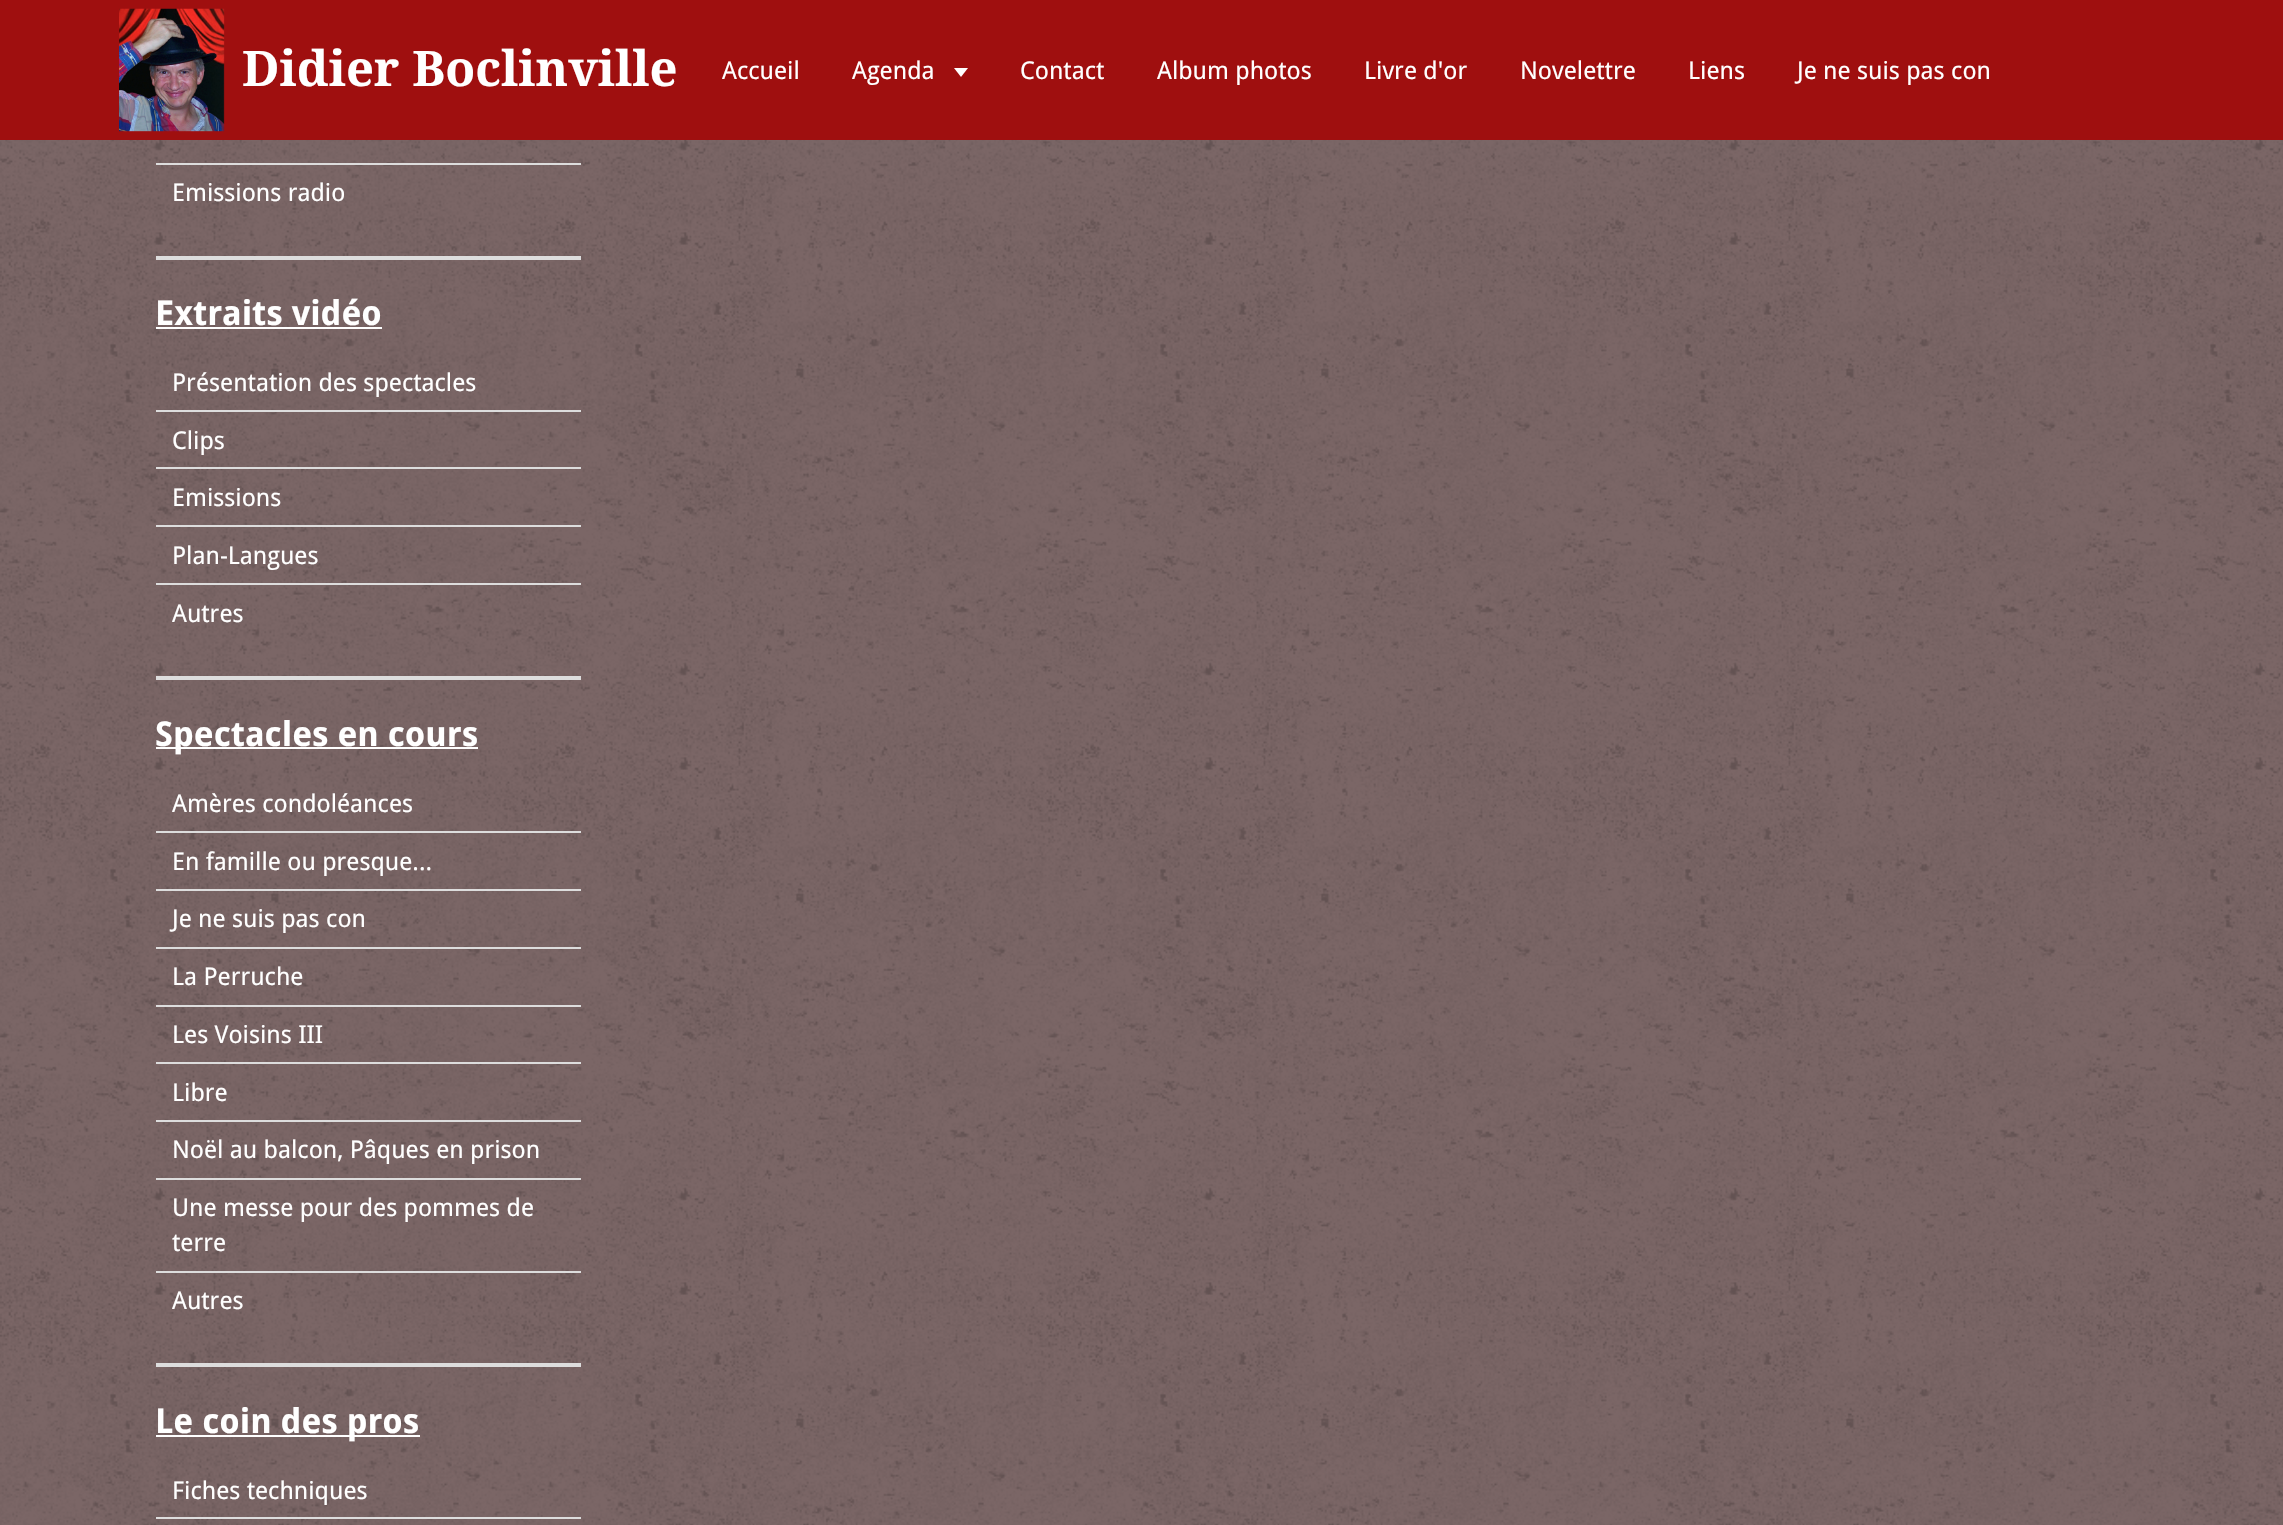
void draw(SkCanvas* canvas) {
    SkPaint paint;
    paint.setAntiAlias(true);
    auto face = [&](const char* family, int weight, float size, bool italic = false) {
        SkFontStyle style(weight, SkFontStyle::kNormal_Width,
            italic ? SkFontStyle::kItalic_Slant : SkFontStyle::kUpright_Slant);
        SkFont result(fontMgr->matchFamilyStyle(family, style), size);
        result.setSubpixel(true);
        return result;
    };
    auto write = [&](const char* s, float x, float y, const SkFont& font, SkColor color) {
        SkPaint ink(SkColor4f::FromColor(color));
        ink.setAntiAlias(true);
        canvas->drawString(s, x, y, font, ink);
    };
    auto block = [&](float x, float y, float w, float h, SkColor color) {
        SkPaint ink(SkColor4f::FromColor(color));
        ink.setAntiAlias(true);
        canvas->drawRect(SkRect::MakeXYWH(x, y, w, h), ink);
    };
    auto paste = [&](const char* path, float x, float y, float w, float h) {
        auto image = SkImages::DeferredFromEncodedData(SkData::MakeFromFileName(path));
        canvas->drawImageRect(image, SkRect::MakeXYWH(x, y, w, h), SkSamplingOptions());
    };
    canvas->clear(SkColorSetRGB(123, 102, 102));
    paste("pic1.png", 0, 140, 2283, 1385);
    block(0, 0, 2283, 140, SkColorSetRGB(159, 15, 15));
    paste("pic2.png", 119, 8, 106, 124);
    auto kFont1 = face("Droid Serif", 700, 49);
    write("Didier Boclinville", 242, 86, kFont1, SK_ColorWHITE);
    auto kFont2 = face("Droid Sans", 400, 24.5f);
    write("Accueil", 722, 79, kFont2, SK_ColorWHITE);
    write("Agenda", 852, 79, kFont2, SK_ColorWHITE);
    paint.setColor(SK_ColorWHITE);
    canvas->drawPath(SkPathBuilder().moveTo(954, 68).lineTo(968, 68).lineTo(961, 77).close().detach(), paint);
    write("Contact", 1020, 79, kFont2, SK_ColorWHITE);
    write("Album photos", 1157, 79, kFont2, SK_ColorWHITE);
    write("Livre d'or", 1364, 79, kFont2, SK_ColorWHITE);
    write("Novelettre", 1520, 79, kFont2, SK_ColorWHITE);
    write("Liens", 1688, 79, kFont2, SK_ColorWHITE);
    write("Je ne suis pas con", 1797, 79, kFont2, SK_ColorWHITE);
    block(156, 256, 425, 4, SkColorSetRGB(221, 221, 221));
    block(156, 163, 425, 2, SkColorSetRGB(221, 221, 221));
    write("Emissions radio", 172, 201, kFont2, SK_ColorWHITE);
    block(156, 676, 425, 4, SkColorSetRGB(221, 221, 221));
    auto kFont3 = face("Droid Sans", 700, 34.25f);
    write("Extraits vidéo", 155, 325, kFont3, SK_ColorWHITE);
    block(156, 327, 226, 2, SK_ColorWHITE);
    block(156, 410, 425, 2, SkColorSetRGB(221, 221, 221));
    write("Présentation des spectacles", 172, 391, kFont2, SK_ColorWHITE);
    block(156, 467, 425, 2, SkColorSetRGB(221, 221, 221));
    write("Clips", 172, 449, kFont2, SK_ColorWHITE);
    block(156, 525, 425, 2, SkColorSetRGB(221, 221, 221));
    write("Emissions", 172, 506, kFont2, SK_ColorWHITE);
    block(156, 583, 425, 2, SkColorSetRGB(221, 221, 221));
    write("Plan-Langues", 172, 564, kFont2, SK_ColorWHITE);
    write("Autres", 172, 622, kFont2, SK_ColorWHITE);
    block(156, 1363, 425, 4, SkColorSetRGB(221, 221, 221));
    block(156, 747, 322, 2, SK_ColorWHITE);
    write("Spectacles en cours", 155, 746, kFont3, SK_ColorWHITE);
    block(156, 831, 425, 2, SkColorSetRGB(221, 221, 221));
    write("Amères condoléances", 172, 812, kFont2, SK_ColorWHITE);
    block(156, 889, 425, 2, SkColorSetRGB(221, 221, 221));
    write("En famille ou presque...", 172, 870, kFont2, SK_ColorWHITE);
    block(156, 947, 425, 2, SkColorSetRGB(221, 221, 221));
    write("Je ne suis pas con", 172, 927, kFont2, SK_ColorWHITE);
    block(156, 1005, 425, 2, SkColorSetRGB(221, 221, 221));
    write("La Perruche", 172, 985, kFont2, SK_ColorWHITE);
    block(156, 1062, 425, 2, SkColorSetRGB(221, 221, 221));
    write("Les Voisins III", 172, 1043, kFont2, SK_ColorWHITE);
    block(156, 1120, 425, 2, SkColorSetRGB(221, 221, 221));
    write("Libre", 172, 1101, kFont2, SK_ColorWHITE);
    block(156, 1178, 425, 2, SkColorSetRGB(221, 221, 221));
    write("Noël au balcon, Pâques en prison", 172, 1158, kFont2, SK_ColorWHITE);
    block(156, 1271, 425, 2, SkColorSetRGB(221, 221, 221));
    write("Une messe pour des pommes de", 172, 1216, kFont2, SK_ColorWHITE);
    write("terre", 172, 1251, kFont2, SK_ColorWHITE);
    write("Autres", 172, 1309, kFont2, SK_ColorWHITE);
    block(156, 1435, 264, 2, SK_ColorWHITE);
    write("Le coin des pros", 155, 1433, kFont3, SK_ColorWHITE);
    block(156, 1517, 425, 2, SkColorSetRGB(221, 221, 221));
    write("Fiches techniques", 172, 1499, kFont2, SK_ColorWHITE);
}
